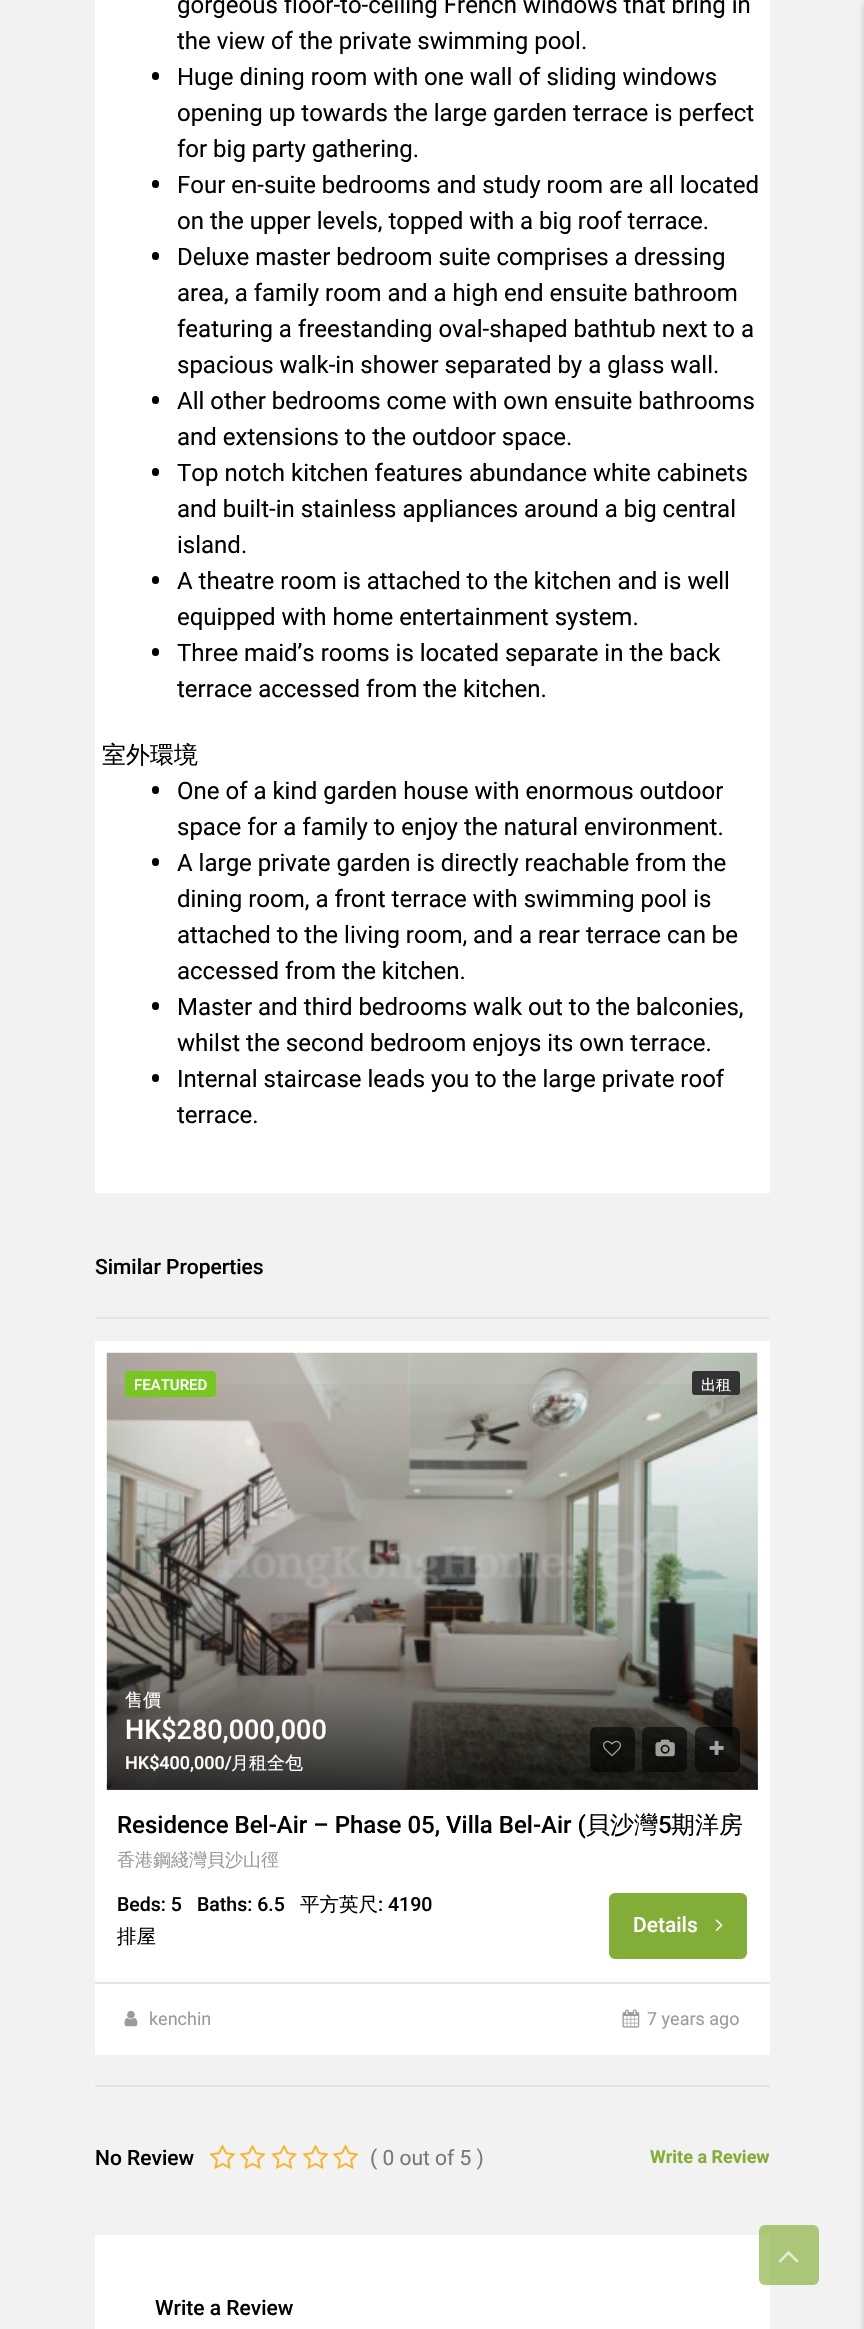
void draw(SkCanvas* canvas) {
    SkPaint paint;
    paint.setAntiAlias(true);
    auto face = [&](const char* family, int weight, float size, bool italic = false) {
        SkFontStyle style(weight, SkFontStyle::kNormal_Width,
            italic ? SkFontStyle::kItalic_Slant : SkFontStyle::kUpright_Slant);
        SkFont result(fontMgr->matchFamilyStyle(family, style), size);
        result.setSubpixel(true);
        return result;
    };
    auto write = [&](const char* s, float x, float y, const SkFont& font, SkColor color) {
        SkPaint ink(SkColor4f::FromColor(color));
        ink.setAntiAlias(true);
        canvas->drawString(s, x, y, font, ink);
    };
    auto block = [&](float x, float y, float w, float h, SkColor color) {
        SkPaint ink(SkColor4f::FromColor(color));
        ink.setAntiAlias(true);
        canvas->drawRect(SkRect::MakeXYWH(x, y, w, h), ink);
    };
    auto card = [&](float x, float y, float w, float h, float radius, SkColor color) {
        SkPaint ink(SkColor4f::FromColor(color));
        ink.setAntiAlias(true);
        canvas->drawRoundRect(SkRect::MakeXYWH(x, y, w, h), radius, radius, ink);
    };
    auto paste = [&](const char* path, float x, float y, float w, float h) {
        auto image = SkImages::DeferredFromEncodedData(SkData::MakeFromFileName(path));
        canvas->drawImageRect(image, SkRect::MakeXYWH(x, y, w, h), SkSamplingOptions());
    };
    canvas->clear(SkColorSetRGB(242, 242, 242));
    block(95, 0, 675, 1193, SK_ColorWHITE);
    auto kFont1 = face("Roboto", 400, 24);
    write("gorgeous floor-to-ceiling French windows that bring in", 177, 13, kFont1, SK_ColorBLACK);
    write("the view of the private swimming pool.", 177, 49, kFont1, SK_ColorBLACK);
    card(152, 72, 7, 8, 3.5f, SK_ColorBLACK);
    write("Huge dining room with one wall of sliding windows", 177, 85, kFont1, SK_ColorBLACK);
    write("opening up towards the large garden terrace is perfect", 177, 121, kFont1, SK_ColorBLACK);
    write("for big party gathering.", 177, 157, kFont1, SK_ColorBLACK);
    card(152, 180, 7, 8, 3.5f, SK_ColorBLACK);
    write("Four en-suite bedrooms and study room are all located", 177, 193, kFont1, SK_ColorBLACK);
    write("on the upper levels, topped with a big roof terrace.", 177, 229, kFont1, SK_ColorBLACK);
    card(152, 252, 7, 8, 3.5f, SK_ColorBLACK);
    write("Deluxe master bedroom suite comprises a dressing", 177, 265, kFont1, SK_ColorBLACK);
    write("area, a family room and a high end ensuite bathroom", 177, 301, kFont1, SK_ColorBLACK);
    write("featuring a freestanding oval-shaped bathtub next to a", 177, 337, kFont1, SK_ColorBLACK);
    write("spacious walk-in shower separated by a glass wall.", 177, 373, kFont1, SK_ColorBLACK);
    card(152, 396, 7, 8, 3.5f, SK_ColorBLACK);
    write("All other bedrooms come with own ensuite bathrooms", 177, 409, kFont1, SK_ColorBLACK);
    write("and extensions to the outdoor space.", 177, 445, kFont1, SK_ColorBLACK);
    card(152, 468, 7, 8, 3.5f, SK_ColorBLACK);
    write("Top notch kitchen features abundance white cabinets", 177, 481, kFont1, SK_ColorBLACK);
    write("and built-in stainless appliances around a big central", 177, 517, kFont1, SK_ColorBLACK);
    write("island.", 177, 553, kFont1, SK_ColorBLACK);
    card(152, 576, 7, 8, 3.5f, SK_ColorBLACK);
    write("A theatre room is attached to the kitchen and is well", 177, 589, kFont1, SK_ColorBLACK);
    write("equipped with home entertainment system.", 177, 625, kFont1, SK_ColorBLACK);
    card(152, 648, 7, 8, 3.5f, SK_ColorBLACK);
    write("Three maid’s rooms is located separate in the back", 177, 661, kFont1, SK_ColorBLACK);
    write("terrace accessed from the kitchen.", 177, 697, kFont1, SK_ColorBLACK);
    auto kFont2 = face("WenQuanYi Zen Hei", 500, 24);
    write("室外環境", 102, 763, kFont2, SK_ColorBLACK);
    card(152, 786, 7, 8, 3.5f, SK_ColorBLACK);
    write("One of a kind garden house with enormous outdoor", 177, 799, kFont1, SK_ColorBLACK);
    write("space for a family to enjoy the natural environment.", 177, 835, kFont1, SK_ColorBLACK);
    card(152, 858, 7, 8, 3.5f, SK_ColorBLACK);
    write("A large private garden is directly reachable from the", 177, 871, kFont1, SK_ColorBLACK);
    write("dining room, a front terrace with swimming pool is", 177, 907, kFont1, SK_ColorBLACK);
    write("attached to the living room, and a rear terrace can be", 177, 943, kFont1, SK_ColorBLACK);
    write("accessed from the kitchen.", 177, 979, kFont1, SK_ColorBLACK);
    card(152, 1002, 7, 8, 3.5f, SK_ColorBLACK);
    write("Master and third bedrooms walk out to the balconies,", 177, 1015, kFont1, SK_ColorBLACK);
    write("whilst the second bedroom enjoys its own terrace.", 177, 1051, kFont1, SK_ColorBLACK);
    card(152, 1074, 7, 8, 3.5f, SK_ColorBLACK);
    write("Internal staircase leads you to the large private roof", 177, 1087, kFont1, SK_ColorBLACK);
    write("terrace.", 177, 1123, kFont1, SK_ColorBLACK);
    block(95, 1317, 675, 2, SkColorSetRGB(229, 229, 229));
    auto kFont3 = face("Roboto", 500, 21);
    write("Similar Properties", 95, 1274, kFont3, SK_ColorBLACK);
    block(95, 1341, 675, 641, SK_ColorWHITE);
    paste("pic1.png", 106, 1352, 652, 437);
    {
        const SkColor colors[] = {SkColorSetARGB(0, 0, 0, 0), SkColorSetARGB(51, 0, 0, 0), SkColorSetARGB(204, 0, 0, 0)};
        const float stops[] = {0, 0.65f, 1};
        const SkPoint ends[] = {{432, 1353}, {432, 1790}};
        paint.setShader(SkGradientShader::MakeLinear(ends, colors, stops, 3, SkTileMode::kClamp));
        paint.setAlpha(255);
    }
    canvas->drawRect(SkRect::MakeXYWH(107, 1384, 651, 406), paint);
    card(125, 1371, 91, 26, 4, SkColorSetRGB(119, 199, 32));
    auto kFont4 = face("Roboto", 500, 15);
    write("FEATURED", 134, 1390, kFont4, SK_ColorWHITE);
    card(692, 1371, 48, 24, 3, SkColorSetRGB(51, 51, 51));
    auto kFont5 = face("WenQuanYi Zen Hei", 500, 15);
    write("出租", 701, 1390, kFont5, SK_ColorWHITE);
    auto kFont6 = face("WenQuanYi Zen Hei", 500, 18);
    write("售價", 125, 1706, kFont6, SK_ColorWHITE);
    auto kFont7 = face("Roboto", 500, 27);
    write("HK$280,000,000", 125, 1739, kFont7, SK_ColorWHITE);
    auto kFont8 = face("Roboto", 500, 18);
    write("HK$400,000/", 125, 1769, kFont8, SK_ColorWHITE);
    write("月租全包", 231, 1769, kFont6, SK_ColorWHITE);
    card(590, 1727, 45, 45, 6, SkColorSetARGB(153, 0, 0, 0));
    paste("pic2.png", 603, 1740, 18, 17);
    card(642, 1727, 45, 45, 6, SkColorSetARGB(153, 0, 0, 0));
    paste("pic3.png", 655, 1739, 20, 18);
    card(695, 1727, 45, 45, 6, SkColorSetARGB(153, 0, 0, 0));
    paste("pic4.png", 709, 1740, 15, 15);
    auto kFont9 = face("Roboto", 500, 24);
    write("Residence Bel-Air – Phase 05, Villa Bel-Air (", 117, 1833, kFont9, SK_ColorBLACK);
    write("貝沙灣", 586, 1833, kFont2, SK_ColorBLACK);
    write("5", 658, 1833, kFont9, SK_ColorBLACK);
    write("期洋房", 671, 1833, kFont2, SK_ColorBLACK);
    write("香港鋼綫灣貝沙山徑", 117, 1866, kFont6, SkColorSetRGB(155, 155, 155));
    auto kFont10 = face("Roboto", 500, 19.5f);
    write("Beds: 5", 117, 1911, kFont10, SK_ColorBLACK);
    write("Baths: 6.5", 197, 1911, kFont10, SK_ColorBLACK);
    auto kFont11 = face("WenQuanYi Zen Hei", 500, 19.5f);
    write("平方英尺", 300, 1911, kFont11, SK_ColorBLACK);
    write(": 4190", 378, 1911, kFont10, SK_ColorBLACK);
    write("排屋", 117, 1943, kFont11, SK_ColorBLACK);
    paint.setShader(nullptr);
    paint.setColor(SkColorSetRGB(130, 173, 54));
    canvas->drawRoundRect(SkRect::MakeXYWH(610, 1894, 136, 64), 5, 5, paint);
    paint.setStyle(SkPaint::kStroke_Style);
    paint.setStrokeWidth(2);
    canvas->drawRoundRect(SkRect::MakeXYWH(610, 1894, 136, 64), 5, 5, paint);
    write("Details", 633, 1932, kFont3, SK_ColorWHITE);
    paste("pic5.png", 715, 1919, 8, 12);
    block(95, 1984, 675, 71, SK_ColorWHITE);
    block(95, 1982, 675, 2, SkColorSetRGB(229, 229, 229));
    paste("pic6.png", 124, 2010, 14, 17);
    auto kFont12 = face("Roboto", 400, 18);
    write("kenchin", 149, 2025, kFont12, SkColorSetRGB(155, 155, 155));
    paste("pic7.png", 622, 2009, 18, 19);
    write("7 years ago", 647, 2025, kFont12, SkColorSetRGB(155, 155, 155));
    block(95, 2085, 675, 2, SkColorSetRGB(228, 228, 228));
    write("No Review", 95, 2165, kFont3, SK_ColorBLACK);
    paste("pic8.png", 210, 2145, 25, 24);
    paste("pic8.png", 240, 2145, 25, 24);
    paste("pic9.png", 271, 2145, 26, 24);
    paste("pic8.png", 303, 2145, 25, 24);
    paste("pic8.png", 333, 2145, 25, 24);
    auto kFont13 = face("Roboto", 400, 21);
    write("( 0 out of 5 )", 370, 2165, kFont13, SkColorSetRGB(119, 119, 119));
    auto kFont14 = face("Roboto", 700, 18);
    write("Write a Review", 650, 2163, kFont14, SkColorSetRGB(130, 173, 54));
    block(95, 2235, 675, 94, SK_ColorWHITE);
    write("Write a Review", 155, 2315, kFont3, SK_ColorBLACK);
    paint.setStyle(SkPaint::kFill_Style);
    paint.setColor(SkColorSetARGB(51, 0, 0, 0));
    paint.setMaskFilter(SkMaskFilter::MakeBlur(kNormal_SkBlurStyle, 3));
    canvas->drawRect(SkRect::MakeXYWH(864, 3, 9, 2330), paint);
    paint.setMaskFilter(nullptr);
    card(759, 2225, 60, 60, 6, SkColorSetARGB(166, 130, 173, 54));
    paste("pic10.png", 778, 2251, 21, 12);
}
